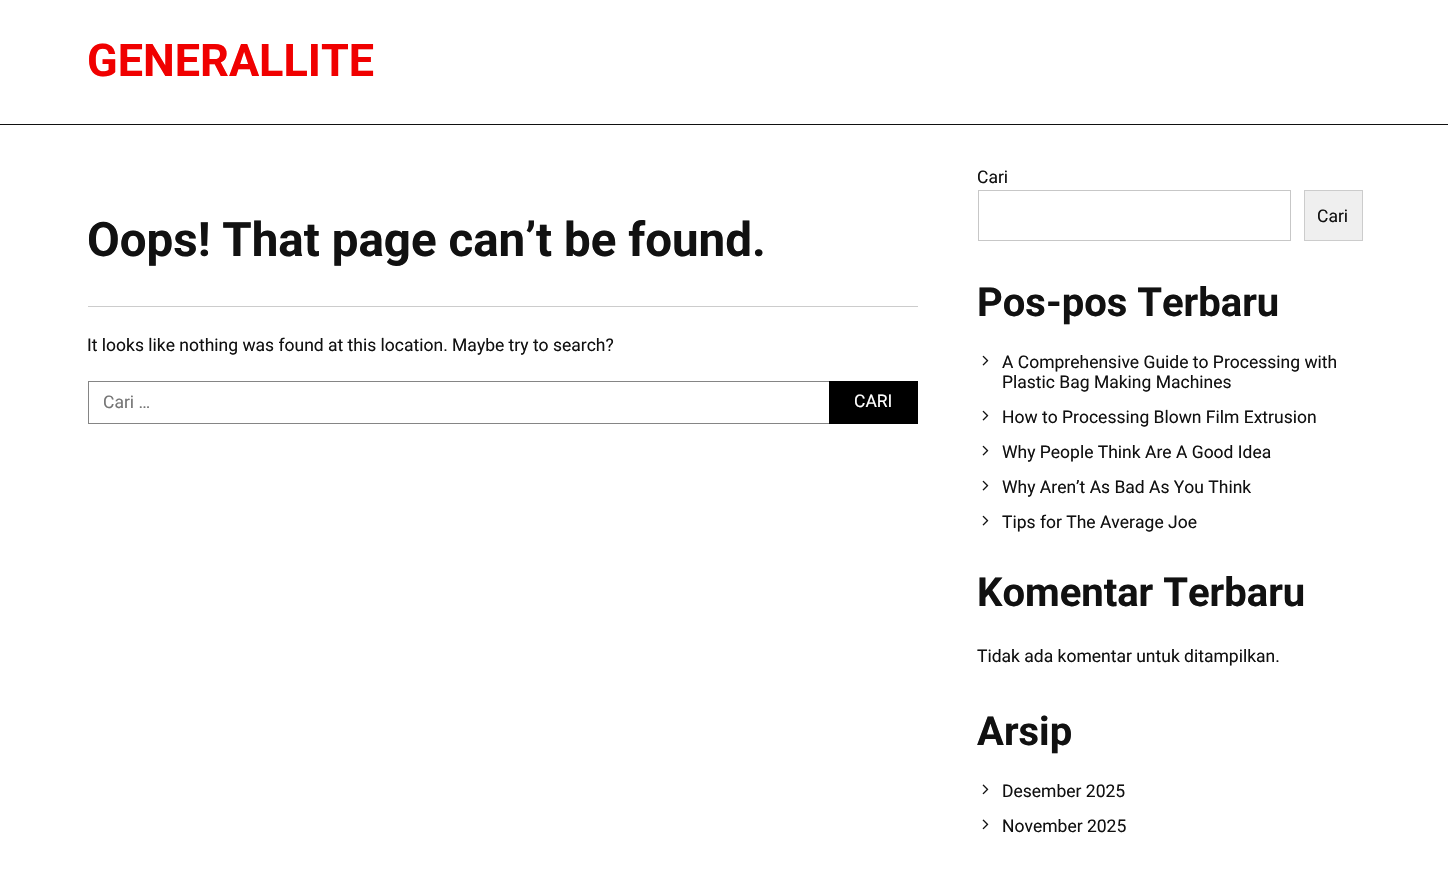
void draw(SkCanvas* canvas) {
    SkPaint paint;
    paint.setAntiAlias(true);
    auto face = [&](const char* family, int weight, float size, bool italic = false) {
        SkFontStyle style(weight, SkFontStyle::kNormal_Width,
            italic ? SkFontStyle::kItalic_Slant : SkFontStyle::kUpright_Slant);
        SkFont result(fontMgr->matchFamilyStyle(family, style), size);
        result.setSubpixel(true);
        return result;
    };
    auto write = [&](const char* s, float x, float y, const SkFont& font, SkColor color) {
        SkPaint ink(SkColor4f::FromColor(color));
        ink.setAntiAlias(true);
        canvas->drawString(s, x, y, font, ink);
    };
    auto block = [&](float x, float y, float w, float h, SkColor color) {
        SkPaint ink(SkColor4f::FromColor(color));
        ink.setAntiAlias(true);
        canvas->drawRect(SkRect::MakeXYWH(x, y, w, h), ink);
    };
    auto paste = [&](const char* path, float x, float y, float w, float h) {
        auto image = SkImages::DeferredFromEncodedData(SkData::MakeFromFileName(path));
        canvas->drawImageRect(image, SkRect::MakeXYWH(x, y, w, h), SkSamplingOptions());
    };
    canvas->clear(SK_ColorWHITE);
    auto kFont1 = face("Roboto", 700, 45);
    write("GENERALLITE", 87, 76, kFont1, SkColorSetRGB(240, 0, 0));
    block(0, 124, 1448, 1, SkColorSetRGB(17, 17, 17));
    block(88, 306, 830, 1, SkColorSetRGB(204, 204, 204));
    auto kFont2 = face("Roboto", 700, 47.5f);
    write("Oops! That page can’t be found.", 87, 256, kFont2, SkColorSetRGB(17, 17, 17));
    auto kFont3 = face("Roboto", 400, 17.5f);
    write("It looks like nothing was found at this location. Maybe try to search?", 87, 351, kFont3, SkColorSetRGB(17, 17, 17));
    paint.setStyle(SkPaint::kStroke_Style);
    paint.setStrokeWidth(1);
    paint.setColor(SkColorSetRGB(133, 133, 133));
    canvas->drawRect(SkRect::MakeXYWH(88.5f, 381.5f, 829, 42), paint);
    write("Cari …", 103, 408, kFont3, SkColorSetRGB(117, 117, 117));
    block(829, 381, 89, 43, SK_ColorBLACK);
    write("CARI", 854, 407, kFont3, SK_ColorWHITE);
    write("Cari", 977, 183, kFont3, SkColorSetRGB(17, 17, 17));
    paint.setColor(SkColorSetRGB(199, 199, 199));
    canvas->drawRect(SkRect::MakeXYWH(978.5f, 190.5f, 312, 50), paint);
    paint.setStyle(SkPaint::kFill_Style);
    paint.setColor(SkColorSetRGB(239, 239, 239));
    canvas->drawRect(SkRect::MakeXYWH(1304.5f, 190.5f, 58, 50), paint);
    paint.setStyle(SkPaint::kStroke_Style);
    paint.setColor(SkColorSetRGB(204, 204, 204));
    canvas->drawRect(SkRect::MakeXYWH(1304.5f, 190.5f, 58, 50), paint);
    write("Cari", 1317, 222, kFont3, SkColorSetRGB(17, 17, 17));
    auto kFont4 = face("Roboto", 700, 40);
    write("Pos-pos Terbaru", 977, 316, kFont4, SkColorSetRGB(17, 17, 17));
    paste("pic1.png", 982, 355, 7, 11);
    write("A Comprehensive Guide to Processing with", 1002, 368, kFont3, SkColorSetRGB(17, 17, 17));
    write("Plastic Bag Making Machines", 1002, 388, kFont3, SkColorSetRGB(17, 17, 17));
    paste("pic1.png", 982, 410, 7, 11);
    write("How to Processing Blown Film Extrusion", 1002, 423, kFont3, SkColorSetRGB(17, 17, 17));
    paste("pic1.png", 982, 445, 7, 11);
    write("Why People Think Are A Good Idea", 1002, 458, kFont3, SkColorSetRGB(17, 17, 17));
    paste("pic1.png", 982, 480, 7, 11);
    write("Why Aren’t As Bad As You Think", 1002, 493, kFont3, SkColorSetRGB(17, 17, 17));
    paste("pic1.png", 982, 515, 7, 11);
    write("Tips for The Average Joe", 1002, 528, kFont3, SkColorSetRGB(17, 17, 17));
    write("Komentar Terbaru", 977, 606, kFont4, SkColorSetRGB(17, 17, 17));
    write("Tidak ada komentar untuk ditampilkan.", 977, 662, kFont3, SkColorSetRGB(17, 17, 17));
    write("Arsip", 977, 745, kFont4, SkColorSetRGB(17, 17, 17));
    paste("pic2.png", 982, 784, 7, 11);
    write("Desember 2025", 1002, 797, kFont3, SkColorSetRGB(17, 17, 17));
    paste("pic2.png", 982, 819, 7, 11);
    write("November 2025", 1002, 832, kFont3, SkColorSetRGB(17, 17, 17));
}
